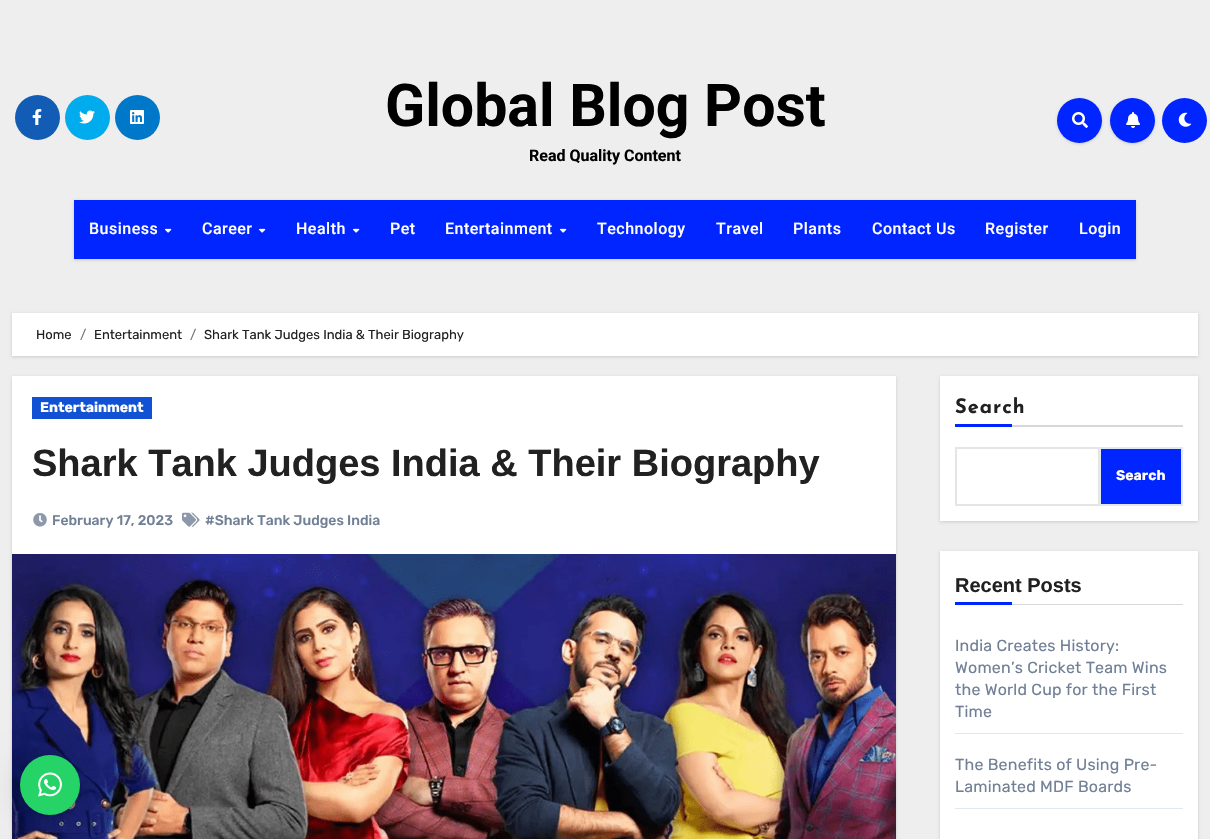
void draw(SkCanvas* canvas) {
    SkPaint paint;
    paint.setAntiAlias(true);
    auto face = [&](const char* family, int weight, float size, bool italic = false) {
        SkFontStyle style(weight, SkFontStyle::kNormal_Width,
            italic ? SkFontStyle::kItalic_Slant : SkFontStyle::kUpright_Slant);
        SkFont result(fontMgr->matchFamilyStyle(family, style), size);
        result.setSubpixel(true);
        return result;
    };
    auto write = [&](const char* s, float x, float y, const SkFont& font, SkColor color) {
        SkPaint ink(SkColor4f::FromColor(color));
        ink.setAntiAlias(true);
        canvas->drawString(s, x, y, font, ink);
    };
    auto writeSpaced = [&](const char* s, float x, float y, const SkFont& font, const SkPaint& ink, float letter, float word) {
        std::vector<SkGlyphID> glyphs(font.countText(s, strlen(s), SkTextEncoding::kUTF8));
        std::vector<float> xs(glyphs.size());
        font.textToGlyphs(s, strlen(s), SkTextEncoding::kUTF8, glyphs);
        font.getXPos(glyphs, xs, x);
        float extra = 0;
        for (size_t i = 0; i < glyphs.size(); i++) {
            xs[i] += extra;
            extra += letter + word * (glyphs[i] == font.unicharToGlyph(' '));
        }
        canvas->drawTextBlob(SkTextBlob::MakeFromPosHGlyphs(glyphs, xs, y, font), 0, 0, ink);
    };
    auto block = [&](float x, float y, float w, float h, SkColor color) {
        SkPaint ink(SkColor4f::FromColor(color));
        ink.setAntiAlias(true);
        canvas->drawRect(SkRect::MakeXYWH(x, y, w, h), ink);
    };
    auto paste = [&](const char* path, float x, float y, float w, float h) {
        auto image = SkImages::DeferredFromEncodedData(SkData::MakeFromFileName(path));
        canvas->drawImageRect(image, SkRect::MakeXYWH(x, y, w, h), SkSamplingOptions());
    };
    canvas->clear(SkColorSetRGB(238, 238, 238));
    paint.setColor(SkColorSetRGB(19, 92, 182));
    canvas->drawCircle(37.5f, 117.5f, 22.5f, paint);
    paste("pic1.png", 32, 109, 10, 16);
    paint.setColor(SkColorSetRGB(0, 172, 237));
    canvas->drawCircle(87.5f, 117.5f, 22.5f, paint);
    paste("pic2.png", 79, 110, 16, 14);
    paint.setColor(SkColorSetRGB(0, 120, 202));
    canvas->drawCircle(137.5f, 117.5f, 22.5f, paint);
    paste("pic3.png", 130, 110, 14, 14);
    auto kFont1 = face("Roboto", 700, 59);
    write("Global Blog Post", 385, 126, kFont1, SK_ColorBLACK);
    auto kFont2 = face("Roboto", 700, 16);
    write("Read Quality Content", 529, 161, kFont2, SK_ColorBLACK);
    paint.setColor(SkColorSetARGB(38, 0, 0, 0));
    paint.setMaskFilter(SkMaskFilter::MakeBlur(kNormal_SkBlurStyle, 1.5f));
    canvas->drawRoundRect(SkRect::MakeXYWH(1057, 99, 45, 45), 22.5f, 22.5f, paint);
    paint.setMaskFilter(nullptr);
    paint.setColor(SkColorSetRGB(0, 37, 255));
    canvas->drawCircle(1079.5f, 120.5f, 22.5f, paint);
    paste("pic4.png", 1072, 112, 16, 16);
    paint.setColor(SkColorSetARGB(38, 0, 0, 0));
    paint.setMaskFilter(SkMaskFilter::MakeBlur(kNormal_SkBlurStyle, 1.5f));
    canvas->drawRoundRect(SkRect::MakeXYWH(1110, 99, 45, 45), 22.5f, 22.5f, paint);
    paint.setMaskFilter(nullptr);
    paint.setColor(SkColorSetRGB(0, 37, 255));
    canvas->drawCircle(1132.5f, 120.5f, 22.5f, paint);
    paste("pic5.png", 1126, 112, 14, 16);
    canvas->drawCircle(1184.5f, 120.5f, 22.5f, paint);
    paste("pic6.png", 1178, 112, 14, 15);
    paint.setColor(SkColorSetARGB(38, 0, 0, 0));
    paint.setMaskFilter(SkMaskFilter::MakeBlur(kNormal_SkBlurStyle, 1.5f));
    canvas->drawRect(SkRect::MakeXYWH(74, 201, 1062, 59), paint);
    paint.setMaskFilter(nullptr);
    block(74, 200, 1062, 59, SkColorSetRGB(0, 37, 255));
    auto kFont3 = face("Roboto", 500, 16);
    paint.setColor(SK_ColorWHITE);
    writeSpaced("Business", 89, 234, kFont3, paint, 0.5f, 0);
    paste("pic7.png", 165, 228, 7, 5);
    writeSpaced("Career", 202, 234, kFont3, paint, 0.5f, 0);
    paste("pic7.png", 259, 228, 7, 5);
    writeSpaced("Health", 296, 234, kFont3, paint, 0.5f, 0);
    paste("pic7.png", 353, 228, 7, 5);
    writeSpaced("Pet", 390, 234, kFont3, paint, 0.5f, 0);
    writeSpaced("Entertainment", 445, 234, kFont3, paint, 0.5f, 0);
    paste("pic7.png", 560, 228, 7, 5);
    writeSpaced("Technology", 597, 234, kFont3, paint, 0.5f, 0);
    writeSpaced("Travel", 716, 234, kFont3, paint, 0.5f, 0);
    writeSpaced("Plants", 793, 234, kFont3, paint, 0.5f, 0);
    writeSpaced("Contact Us", 872, 234, kFont3, paint, 0.5f, 0);
    writeSpaced("Register", 985, 234, kFont3, paint, 0.5f, 0);
    writeSpaced("Login", 1079, 234, kFont3, paint, 0.5f, 0);
    paint.setColor(SkColorSetARGB(38, 0, 0, 0));
    paint.setMaskFilter(SkMaskFilter::MakeBlur(kNormal_SkBlurStyle, 1.5f));
    canvas->drawRect(SkRect::MakeXYWH(12, 314, 1186, 43), paint);
    paint.setMaskFilter(nullptr);
    block(12, 313, 1186, 43, SK_ColorWHITE);
    auto kFont4 = face("Rubik", 300, 13);
    write("Home", 36, 339, kFont4, SkColorSetRGB(33, 33, 33));
    write("/", 80, 339, kFont4, SkColorSetRGB(108, 117, 125));
    write("Entertainment", 94, 339, kFont4, SkColorSetRGB(33, 33, 33));
    write("/", 190, 339, kFont4, SkColorSetRGB(108, 117, 125));
    write("Shark Tank Judges India & Their Biography", 204, 339, kFont4, SkColorSetRGB(33, 33, 33));
    paint.setMaskFilter(SkMaskFilter::MakeBlur(kNormal_SkBlurStyle, 1.5f));
    canvas->drawRect(SkRect::MakeXYWH(12, 377, 884, 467), paint);
    paint.setMaskFilter(nullptr);
    block(12, 376, 884, 178, SK_ColorWHITE);
    block(32, 397, 120, 22, SkColorSetRGB(17, 81, 211));
    auto kFont5 = face("Rubik", 700, 14);
    write("Entertainment", 40, 412, kFont5, SK_ColorWHITE);
    auto kFont6 = face("Liberation Sans", 700, 38);
    write("Shark Tank Judges India & Their Biography", 32, 476, kFont6, SkColorSetRGB(33, 33, 33));
    paste("pic8.png", 33, 513, 14, 14);
    auto kFont7 = face("Rubik", 500, 14);
    write("February 17, 2023", 52, 525, kFont7, SkColorSetRGB(113, 128, 150));
    paste("pic9.png", 182, 512, 18, 15);
    write("#Shark Tank Judges India", 205, 525, kFont7, SkColorSetRGB(113, 128, 150));
    paste("pic10.png", 12, 554, 884, 285);
    paint.setMaskFilter(SkMaskFilter::MakeBlur(kNormal_SkBlurStyle, 1.5f));
    canvas->drawRect(SkRect::MakeXYWH(940, 377, 258, 145), paint);
    paint.setMaskFilter(nullptr);
    block(940, 376, 258, 145, SK_ColorWHITE);
    block(1012, 425, 171, 2, SkColorSetRGB(215, 215, 215));
    auto kFont8 = face("Josefin Sans", 700, 20);
    paint.setColor(SkColorSetRGB(33, 33, 33));
    writeSpaced("Search", 955, 413, kFont8, paint, 1, 0);
    block(955, 424, 57, 3, SkColorSetRGB(0, 37, 255));
    paint.setStyle(SkPaint::kStroke_Style);
    paint.setStrokeWidth(2);
    paint.setColor(SkColorSetRGB(229, 229, 229));
    canvas->drawRect(SkRect::MakeXYWH(956, 448, 143, 57), paint);
    paint.setStyle(SkPaint::kFill_Style);
    paint.setColor(SkColorSetRGB(0, 37, 255));
    canvas->drawRect(SkRect::MakeXYWH(1100, 448, 82, 57), paint);
    paint.setStyle(SkPaint::kStroke_Style);
    paint.setColor(SkColorSetRGB(226, 232, 240));
    canvas->drawRect(SkRect::MakeXYWH(1100, 448, 82, 57), paint);
    write("Search", 1116, 480, kFont5, SK_ColorWHITE);
    paint.setStyle(SkPaint::kFill_Style);
    paint.setColor(SkColorSetARGB(38, 0, 0, 0));
    paint.setMaskFilter(SkMaskFilter::MakeBlur(kNormal_SkBlurStyle, 1.5f));
    canvas->drawRect(SkRect::MakeXYWH(940, 552, 258, 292), paint);
    paint.setMaskFilter(nullptr);
    block(940, 551, 258, 288, SK_ColorWHITE);
    block(1012, 604, 171, 1, SkColorSetRGB(215, 215, 215));
    auto kFont9 = face("Liberation Sans", 700, 20);
    write("Recent Posts", 955, 592, kFont9, SkColorSetRGB(33, 33, 33));
    block(955, 602, 57, 3, SkColorSetRGB(0, 37, 255));
    block(955, 733, 228, 1, SkColorSetRGB(226, 232, 240));
    auto kFont10 = face("Rubik", 300, 16);
    paint.setColor(SkColorSetRGB(113, 128, 150));
    writeSpaced("India Creates History:", 955, 651, kFont10, paint, 0.2f, 0);
    writeSpaced("Women’s Cricket Team Wins", 955, 673, kFont10, paint, 0.2f, 0);
    writeSpaced("the World Cup for the First", 955, 695, kFont10, paint, 0.2f, 0);
    writeSpaced("Time", 955, 717, kFont10, paint, 0.2f, 0);
    block(955, 808, 228, 1, SkColorSetRGB(226, 232, 240));
    writeSpaced("The Benefits of Using Pre-", 955, 770, kFont10, paint, 0.2f, 0);
    writeSpaced("Laminated MDF Boards", 955, 792, kFont10, paint, 0.2f, 0);
    paint.setColor(SkColorSetARGB(41, 0, 0, 0));
    paint.setMaskFilter(SkMaskFilter::MakeBlur(kNormal_SkBlurStyle, 16));
    canvas->drawRoundRect(SkRect::MakeXYWH(20, 757, 60, 60), 30, 30, paint);
    paint.setMaskFilter(nullptr);
    paint.setColor(SkColorSetARGB(15, 0, 0, 0));
    paint.setMaskFilter(SkMaskFilter::MakeBlur(kNormal_SkBlurStyle, 3));
    canvas->drawRoundRect(SkRect::MakeXYWH(20, 756, 60, 60), 30, 30, paint);
    paint.setMaskFilter(nullptr);
    paint.setColor(SkColorSetRGB(37, 211, 102));
    canvas->drawCircle(50, 785, 30, paint);
    paste("pic11.png", 38, 772, 24, 25);
}
